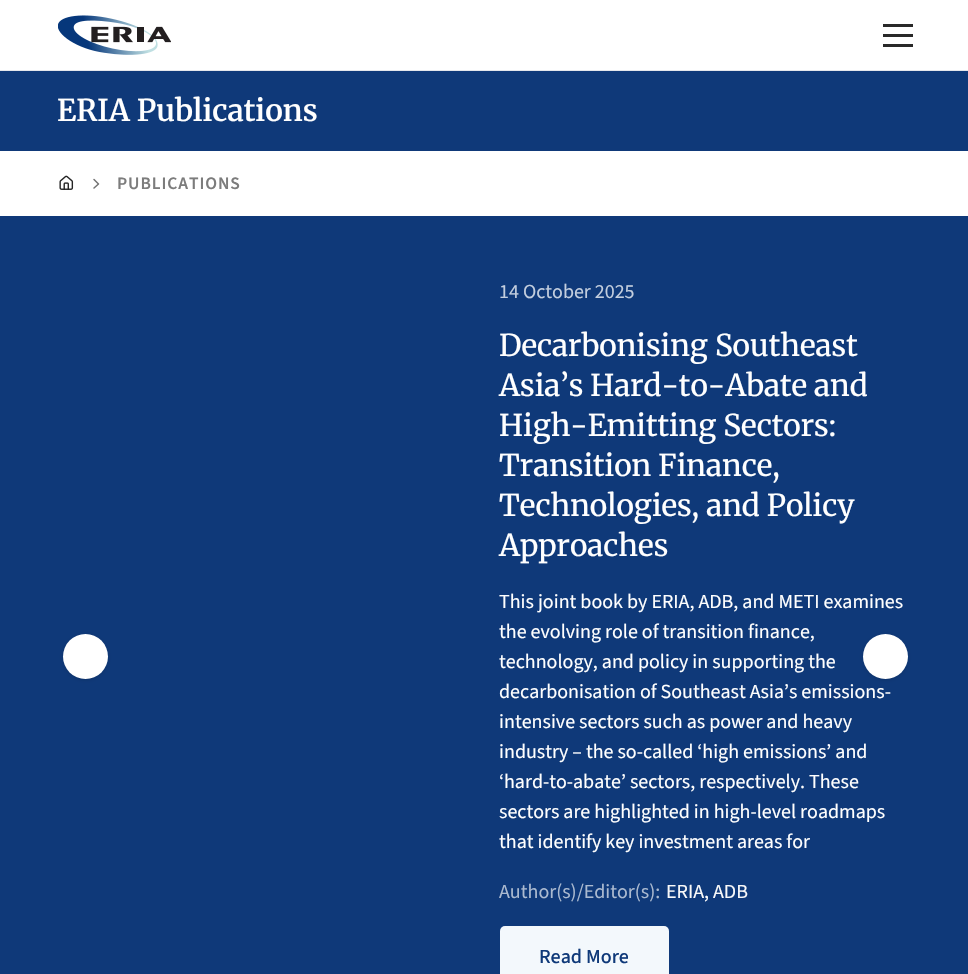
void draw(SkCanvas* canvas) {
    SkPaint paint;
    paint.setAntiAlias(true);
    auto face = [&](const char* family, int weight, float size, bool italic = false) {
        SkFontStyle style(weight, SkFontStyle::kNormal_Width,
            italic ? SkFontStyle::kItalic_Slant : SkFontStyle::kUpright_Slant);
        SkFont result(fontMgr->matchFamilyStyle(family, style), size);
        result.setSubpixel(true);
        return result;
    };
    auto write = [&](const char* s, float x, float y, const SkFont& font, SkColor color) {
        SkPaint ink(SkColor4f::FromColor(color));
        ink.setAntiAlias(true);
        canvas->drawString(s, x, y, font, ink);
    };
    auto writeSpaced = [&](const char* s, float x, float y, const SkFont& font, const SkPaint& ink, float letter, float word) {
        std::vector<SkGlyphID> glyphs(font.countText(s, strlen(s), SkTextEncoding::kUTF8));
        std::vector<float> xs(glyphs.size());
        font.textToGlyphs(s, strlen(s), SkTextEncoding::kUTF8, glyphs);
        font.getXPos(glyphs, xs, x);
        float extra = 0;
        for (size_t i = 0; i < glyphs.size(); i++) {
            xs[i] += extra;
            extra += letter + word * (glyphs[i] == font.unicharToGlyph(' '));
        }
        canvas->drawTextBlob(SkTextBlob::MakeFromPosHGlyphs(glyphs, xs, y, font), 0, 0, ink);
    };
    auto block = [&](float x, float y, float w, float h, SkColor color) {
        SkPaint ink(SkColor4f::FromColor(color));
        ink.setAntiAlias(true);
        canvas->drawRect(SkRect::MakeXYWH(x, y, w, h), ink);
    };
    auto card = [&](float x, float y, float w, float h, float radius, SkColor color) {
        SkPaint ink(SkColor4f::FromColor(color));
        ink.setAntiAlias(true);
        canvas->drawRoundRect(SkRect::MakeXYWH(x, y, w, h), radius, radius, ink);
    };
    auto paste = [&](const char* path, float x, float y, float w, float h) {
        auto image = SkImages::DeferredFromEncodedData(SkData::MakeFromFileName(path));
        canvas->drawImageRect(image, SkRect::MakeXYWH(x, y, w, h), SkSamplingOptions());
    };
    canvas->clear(SK_ColorWHITE);
    block(0, 70, 968, 1, SkColorSetRGB(229, 231, 235));
    paste("pic1.png", 58, 15, 113, 40);
    block(883, 24, 30, 3, SkColorSetRGB(41, 41, 41));
    block(883, 34, 30, 3, SkColorSetRGB(41, 41, 41));
    block(883, 44, 30, 3, SkColorSetRGB(41, 41, 41));
    block(0, 71, 968, 80, SkColorSetRGB(15, 57, 121));
    auto kFont1 = face("Merriweather", 600, 30);
    write("ERIA Publications", 57, 121, kFont1, SK_ColorWHITE);
    paste("pic2.png", 59, 175, 15, 15);
    paint.setStyle(SkPaint::kStroke_Style);
    paint.setStrokeWidth(1.5f);
    paint.setStrokeCap(SkPaint::kRound_Cap);
    paint.setStrokeJoin(SkPaint::kRound_Join);
    paint.setColor(SkColorSetRGB(115, 115, 115));
    canvas->drawPath(SkPathBuilder().moveTo(94, 188).lineTo(98.5f, 184).lineTo(94, 179.5f).detach(), paint);
    auto kFont2 = face("Source Sans 3", 600, 17.5f);
    paint.setStyle(SkPaint::kFill_Style);
    paint.setColor(SkColorSetRGB(124, 124, 124));
    writeSpaced("PUBLICATIONS", 117, 189, kFont2, paint, 0.9f, 0);
    block(0, 216, 968, 758, SkColorSetRGB(15, 57, 121));
    paint.setColor(SkColorSetARGB(26, 0, 0, 0));
    paint.setMaskFilter(SkMaskFilter::MakeBlur(kNormal_SkBlurStyle, 1));
    canvas->drawRoundRect(SkRect::MakeXYWH(64, 636, 42, 43), 21, 21, paint);
    paint.setMaskFilter(nullptr);
    paint.setMaskFilter(SkMaskFilter::MakeBlur(kNormal_SkBlurStyle, 2));
    canvas->drawRoundRect(SkRect::MakeXYWH(63, 635, 45, 45), 22.5f, 22.5f, paint);
    paint.setMaskFilter(nullptr);
    paint.setColor(SK_ColorWHITE);
    canvas->drawCircle(85.5f, 656.5f, 22.5f, paint);
    auto kFont3 = face("Source Sans 3", 400, 20);
    write("14 October 2025", 499, 298, kFont3, SkColorSetRGB(195, 206, 222));
    auto kFont4 = face("Merriweather", 400, 30);
    write("Decarbonising Southeast", 499, 356, kFont4, SK_ColorWHITE);
    write("Asia’s Hard-to-Abate and", 499, 396, kFont4, SK_ColorWHITE);
    write("High-Emitting Sectors:", 499, 436, kFont4, SK_ColorWHITE);
    write("Transition Finance,", 499, 476, kFont4, SK_ColorWHITE);
    write("Technologies, and Policy", 499, 516, kFont4, SK_ColorWHITE);
    write("Approaches", 499, 556, kFont4, SK_ColorWHITE);
    write("This joint book by ERIA, ADB, and METI examines", 499, 608, kFont3, SK_ColorWHITE);
    write("the evolving role of transition finance,", 499, 638, kFont3, SK_ColorWHITE);
    write("technology, and policy in supporting the", 499, 668, kFont3, SK_ColorWHITE);
    write("decarbonisation of Southeast Asia’s emissions-", 499, 698, kFont3, SK_ColorWHITE);
    write("intensive sectors such as power and heavy", 499, 728, kFont3, SK_ColorWHITE);
    write("industry – the so-called ‘high emissions’ and", 499, 758, kFont3, SK_ColorWHITE);
    write("‘hard-to-abate’ sectors, respectively. These", 499, 788, kFont3, SK_ColorWHITE);
    write("sectors are highlighted in high-level roadmaps", 499, 818, kFont3, SK_ColorWHITE);
    write("that identify key investment areas for", 499, 848, kFont3, SK_ColorWHITE);
    write("Author(s)/Editor(s):", 499, 898, kFont3, SkColorSetRGB(171, 186, 208));
    write("ERIA", 666, 898, kFont3, SkColorSetRGB(249, 249, 249));
    write(",", 704, 898, kFont3, SK_ColorWHITE);
    write("ADB", 713, 898, kFont3, SkColorSetRGB(249, 249, 249));
    card(500, 926, 169, 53, 5, SkColorSetRGB(243, 248, 252));
    auto kFont5 = face("Source Sans 3", 500, 20);
    write("Read More", 539, 963, kFont5, SkColorSetRGB(15, 57, 121));
    paint.setColor(SkColorSetARGB(26, 0, 0, 0));
    paint.setMaskFilter(SkMaskFilter::MakeBlur(kNormal_SkBlurStyle, 1));
    canvas->drawRoundRect(SkRect::MakeXYWH(864, 636, 42, 43), 21, 21, paint);
    paint.setMaskFilter(nullptr);
    paint.setMaskFilter(SkMaskFilter::MakeBlur(kNormal_SkBlurStyle, 2));
    canvas->drawRoundRect(SkRect::MakeXYWH(863, 635, 45, 45), 22.5f, 22.5f, paint);
    paint.setMaskFilter(nullptr);
    paint.setColor(SK_ColorWHITE);
    canvas->drawCircle(885.5f, 656.5f, 22.5f, paint);
}
